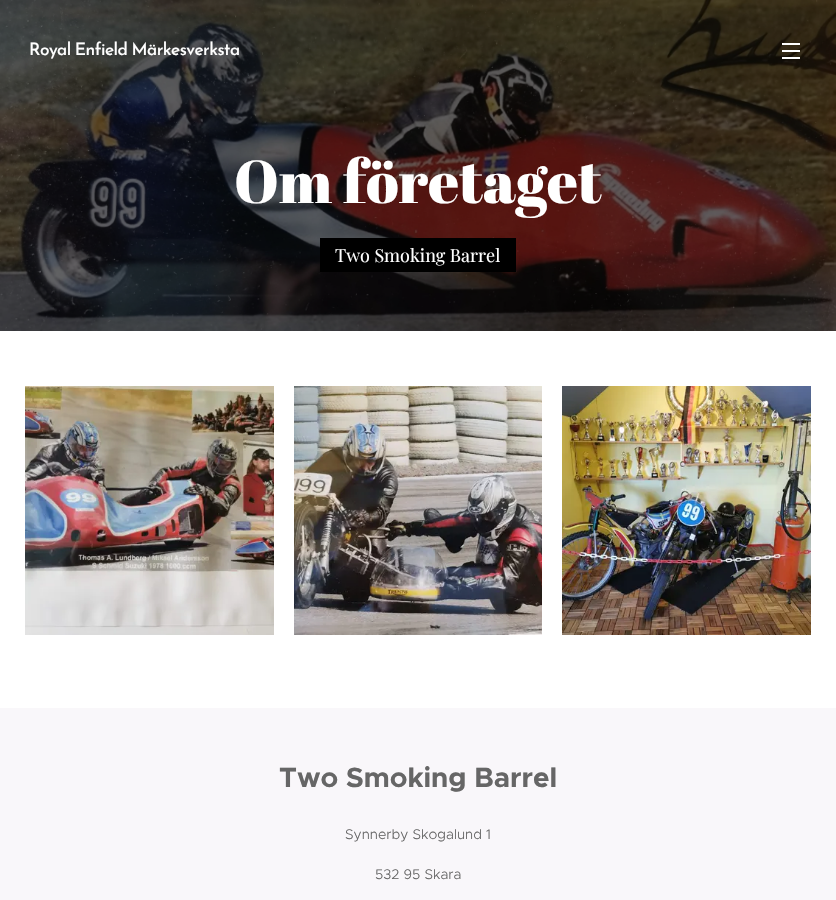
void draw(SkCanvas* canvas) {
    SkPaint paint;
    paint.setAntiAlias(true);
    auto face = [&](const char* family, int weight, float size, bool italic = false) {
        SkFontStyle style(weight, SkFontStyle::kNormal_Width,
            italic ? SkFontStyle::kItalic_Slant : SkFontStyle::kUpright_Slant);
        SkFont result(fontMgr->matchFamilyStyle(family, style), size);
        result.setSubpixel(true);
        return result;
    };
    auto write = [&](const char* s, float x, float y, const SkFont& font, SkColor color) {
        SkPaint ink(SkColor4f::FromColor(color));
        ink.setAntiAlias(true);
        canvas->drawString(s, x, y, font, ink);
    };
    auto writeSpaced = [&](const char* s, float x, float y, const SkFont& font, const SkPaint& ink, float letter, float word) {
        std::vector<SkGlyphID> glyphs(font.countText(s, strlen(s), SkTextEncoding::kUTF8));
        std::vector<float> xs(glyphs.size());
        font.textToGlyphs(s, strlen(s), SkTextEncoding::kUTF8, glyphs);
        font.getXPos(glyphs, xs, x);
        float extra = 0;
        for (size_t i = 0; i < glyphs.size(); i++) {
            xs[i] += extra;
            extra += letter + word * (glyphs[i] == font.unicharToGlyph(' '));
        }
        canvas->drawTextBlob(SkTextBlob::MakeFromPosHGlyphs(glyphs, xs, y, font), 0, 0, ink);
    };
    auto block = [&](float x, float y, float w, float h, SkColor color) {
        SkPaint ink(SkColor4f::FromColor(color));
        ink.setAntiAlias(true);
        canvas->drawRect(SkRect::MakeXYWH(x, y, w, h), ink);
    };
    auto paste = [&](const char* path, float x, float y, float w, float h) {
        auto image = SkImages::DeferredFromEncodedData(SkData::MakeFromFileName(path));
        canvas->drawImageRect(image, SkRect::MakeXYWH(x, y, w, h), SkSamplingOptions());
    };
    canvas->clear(SK_ColorWHITE);
    paste("pic1.png", 0, 0, 836, 331);
    auto kFont1 = face("Josefin Sans", 500, 17.25f);
    paint.setColor(SK_ColorWHITE);
    writeSpaced("Royal Enfield Märkesverksta", 29, 55, kFont1, paint, -0.5f, -1);
    block(782, 50, 18, 2, SK_ColorWHITE);
    block(782, 43, 18, 2, SK_ColorWHITE);
    block(782, 57, 18, 2, SK_ColorWHITE);
    auto kFont2 = face("Abril Fatface", 400, 60);
    write("Om företaget", 234, 203, kFont2, SK_ColorWHITE);
    block(335, 238, 181, 34, SK_ColorBLACK);
    auto kFont3 = face("Playfair Display", 400, 18);
    write("Two Smoking Barrel", 335, 262, kFont3, SK_ColorWHITE);
    block(320, 238, 15, 34, SK_ColorBLACK);
    paste("pic2.png", 25, 386, 249, 249);
    paste("pic3.png", 294, 386, 248, 249);
    paste("pic4.png", 562, 386, 249, 249);
    block(0, 708, 836, 192, SkColorSetRGB(249, 247, 250));
    auto kFont4 = face("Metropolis", 700, 28);
    write("Two Smoking Barrel", 279, 787, kFont4, SkColorSetRGB(102, 102, 102));
    auto kFont5 = face("Metropolis", 300, 14);
    write("Synnerby Skogalund 1", 345, 839, kFont5, SkColorSetRGB(102, 102, 102));
    write("532 95 Skara", 375, 879, kFont5, SkColorSetRGB(102, 102, 102));
}
